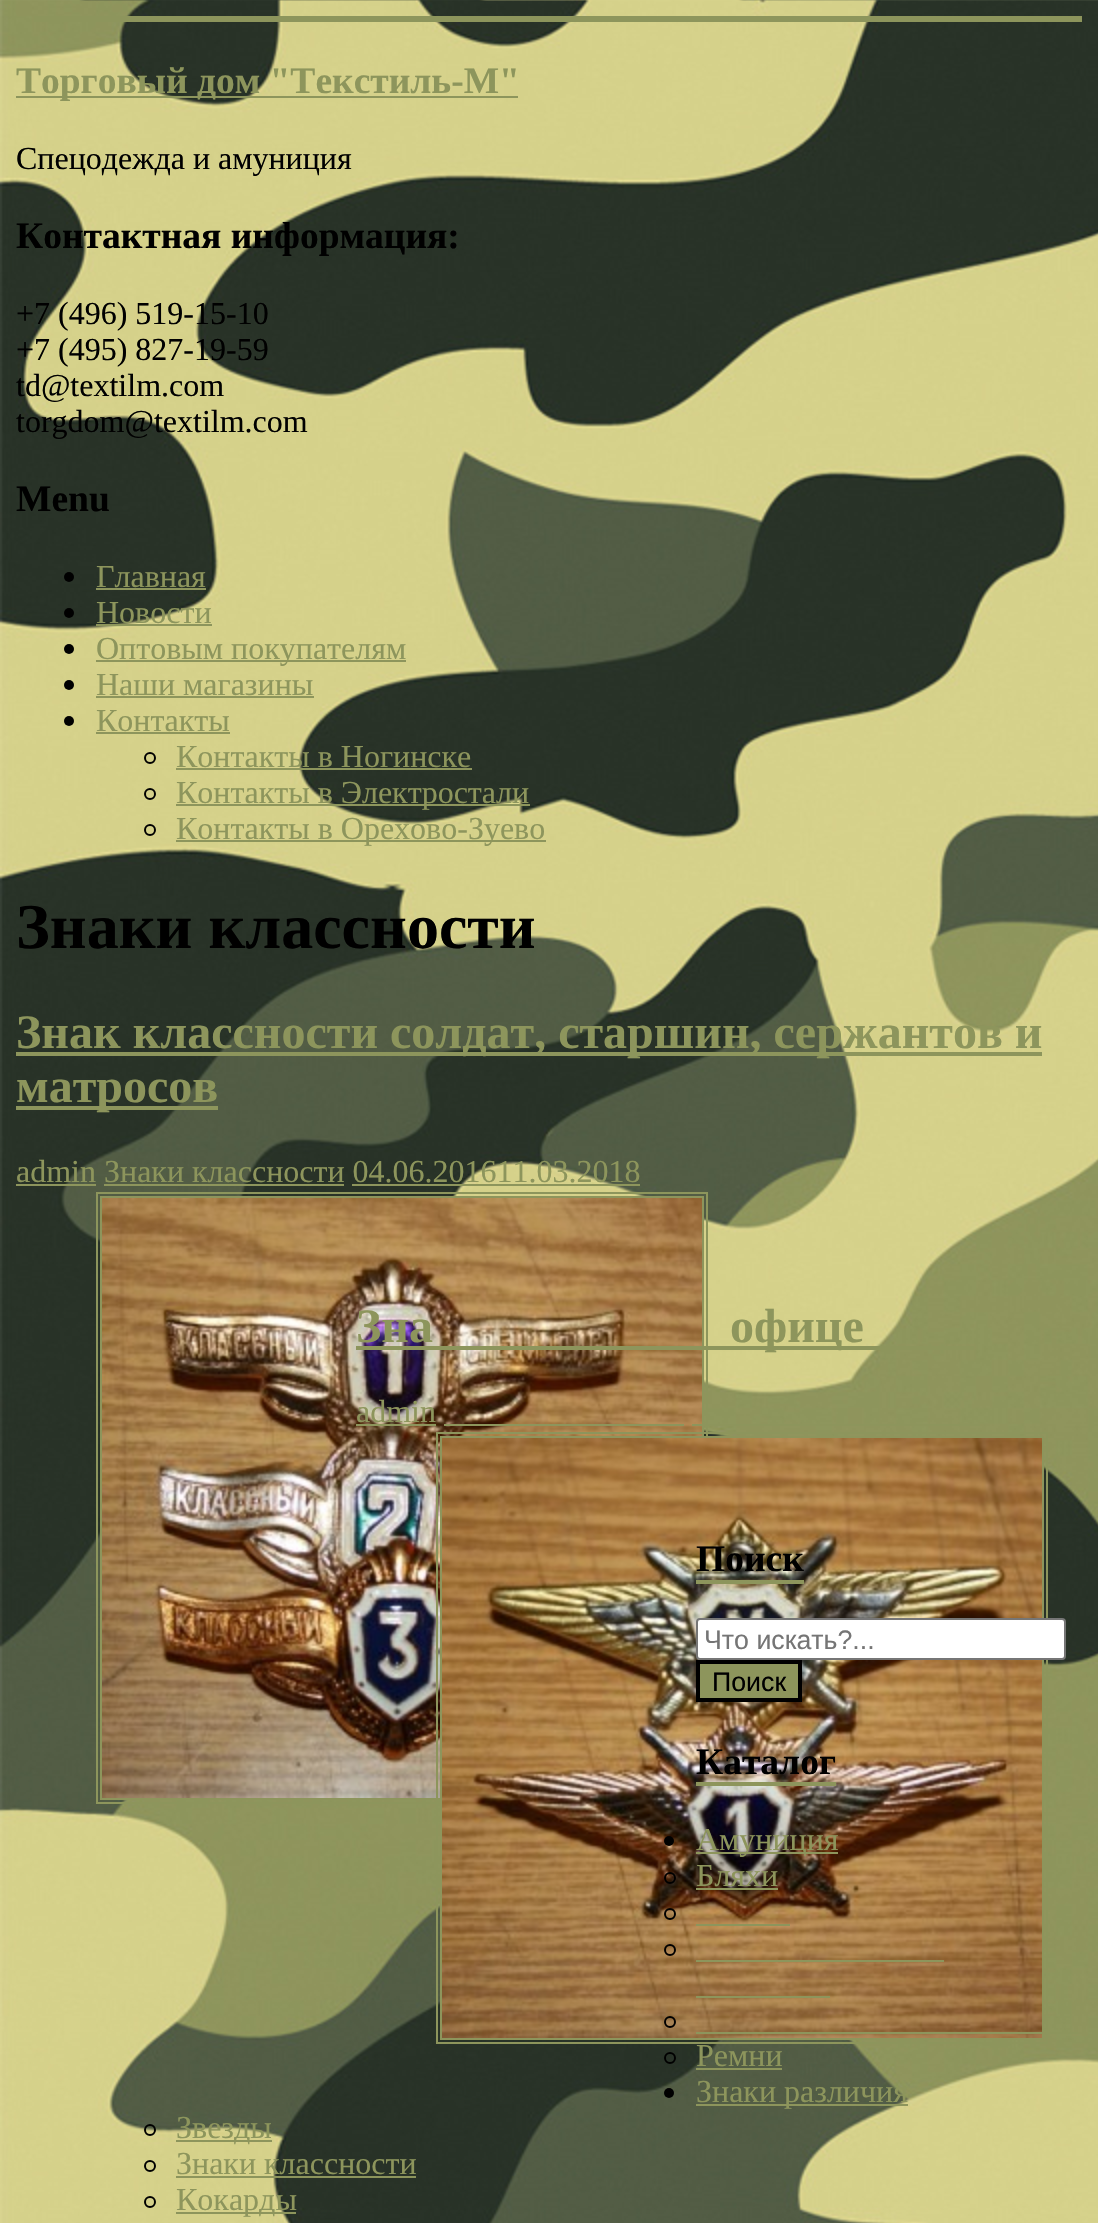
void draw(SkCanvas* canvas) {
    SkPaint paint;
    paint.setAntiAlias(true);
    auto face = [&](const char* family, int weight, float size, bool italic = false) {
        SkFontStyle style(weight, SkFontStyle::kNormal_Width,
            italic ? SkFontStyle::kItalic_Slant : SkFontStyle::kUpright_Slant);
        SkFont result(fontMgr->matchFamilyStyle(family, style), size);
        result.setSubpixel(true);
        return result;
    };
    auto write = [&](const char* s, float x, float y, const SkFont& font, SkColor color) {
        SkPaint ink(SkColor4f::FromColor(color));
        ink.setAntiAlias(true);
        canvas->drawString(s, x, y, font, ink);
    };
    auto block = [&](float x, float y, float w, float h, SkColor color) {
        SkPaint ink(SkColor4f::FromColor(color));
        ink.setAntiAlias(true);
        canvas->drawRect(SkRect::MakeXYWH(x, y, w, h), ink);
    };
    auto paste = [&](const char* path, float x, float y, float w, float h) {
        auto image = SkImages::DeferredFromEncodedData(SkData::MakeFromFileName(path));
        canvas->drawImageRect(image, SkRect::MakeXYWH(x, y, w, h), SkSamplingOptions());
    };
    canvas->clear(SK_ColorWHITE);
    paste("pic1.png", 0, 0, 1098, 2223);
    block(34, 16, 1048, 6, SkColorSetRGB(141, 149, 92));
    block(16, 96, 502, 2, SkColorSetRGB(141, 149, 92));
    auto kFont1 = face("Liberation Serif", 700, 37.5f);
    write("Торговый дом \"Текстиль-М\"", 16, 93, kFont1, SkColorSetRGB(141, 149, 92));
    auto kFont2 = face("Liberation Serif", 400, 32);
    write("Спецодежда и амуниция", 16, 169, kFont2, SK_ColorBLACK);
    write("Контактная информация:", 16, 248, kFont1, SK_ColorBLACK);
    write("+7 (496) 519-15-10", 16, 324, kFont2, SK_ColorBLACK);
    write("+7 (495) 827-19-59", 16, 360, kFont2, SK_ColorBLACK);
    write("td@textilm.com", 16, 396, kFont2, SK_ColorBLACK);
    write("torgdom@textilm.com", 16, 432, kFont2, SK_ColorBLACK);
    write("Menu", 16, 511, kFont1, SK_ColorBLACK);
    paint.setColor(SK_ColorBLACK);
    canvas->drawCircle(69, 577, 5, paint);
    write("Главная", 96, 587, kFont2, SkColorSetRGB(141, 149, 92));
    block(96, 588, 110, 2, SkColorSetRGB(141, 149, 92));
    canvas->drawCircle(69, 613, 5, paint);
    write("Новости", 96, 623, kFont2, SkColorSetRGB(141, 149, 92));
    block(96, 624, 116, 2, SkColorSetRGB(141, 149, 92));
    canvas->drawCircle(69, 649, 5, paint);
    block(96, 660, 310, 2, SkColorSetRGB(141, 149, 92));
    write("Оптовым покупателям", 96, 659, kFont2, SkColorSetRGB(141, 149, 92));
    canvas->drawCircle(69, 685, 5, paint);
    write("Наши магазины", 96, 695, kFont2, SkColorSetRGB(141, 149, 92));
    block(96, 696, 218, 2, SkColorSetRGB(141, 149, 92));
    canvas->drawCircle(69, 721, 5, paint);
    write("Контакты", 96, 731, kFont2, SkColorSetRGB(141, 149, 92));
    block(96, 732, 134, 2, SkColorSetRGB(141, 149, 92));
    paint.setStyle(SkPaint::kStroke_Style);
    paint.setStrokeWidth(2);
    canvas->drawCircle(150, 758, 5, paint);
    write("Контакты в Ногинске", 176, 767, kFont2, SkColorSetRGB(141, 149, 92));
    block(176, 768, 296, 2, SkColorSetRGB(141, 149, 92));
    canvas->drawCircle(150, 794, 5, paint);
    block(176, 804, 354, 2, SkColorSetRGB(141, 149, 92));
    write("Контакты в Электростали", 176, 803, kFont2, SkColorSetRGB(141, 149, 92));
    canvas->drawCircle(150, 830, 5, paint);
    block(176, 840, 370, 2, SkColorSetRGB(141, 149, 92));
    write("Контакты в Орехово-Зуево", 176, 839, kFont2, SkColorSetRGB(141, 149, 92));
    auto kFont3 = face("Liberation Serif", 700, 64);
    write("Знаки классности", 16, 948, kFont3, SK_ColorBLACK);
    block(16, 1052, 1026, 4, SkColorSetRGB(141, 149, 92));
    auto kFont4 = face("Liberation Serif", 700, 48);
    write("Знак классности солдат, старшин, сержантов и", 16, 1048, kFont4, SkColorSetRGB(141, 149, 92));
    block(16, 1106, 202, 4, SkColorSetRGB(141, 149, 92));
    write("матросов", 16, 1102, kFont4, SkColorSetRGB(141, 149, 92));
    write("admin Знаки классности 04.06.201611.03.2018", 16, 1182, kFont2, SkColorSetRGB(141, 149, 92));
    block(16, 1184, 80, 2, SkColorSetRGB(141, 149, 92));
    block(104, 1184, 240, 2, SkColorSetRGB(141, 149, 92));
    block(352, 1184, 288, 2, SkColorSetRGB(141, 149, 92));
    paint.setColor(SkColorSetRGB(141, 149, 92));
    canvas->drawRect(SkRect::MakeXYWH(97, 1193, 610, 610), paint);
    canvas->drawRect(SkRect::MakeXYWH(101, 1197, 602, 602), paint);
    paste("pic2.png", 102, 1198, 600, 600);
    write("Зна", 356, 1342, kFont4, SkColorSetRGB(141, 149, 92));
    block(356, 1346, 618, 4, SkColorSetRGB(141, 149, 92));
    write("офице", 730, 1342, kFont4, SkColorSetRGB(141, 149, 92));
    write("admin", 356, 1422, kFont2, SkColorSetRGB(141, 149, 92));
    block(356, 1424, 80, 2, SkColorSetRGB(141, 149, 92));
    block(444, 1424, 240, 2, SkColorSetRGB(141, 149, 92));
    block(692, 1424, 288, 2, SkColorSetRGB(141, 149, 92));
    canvas->drawRect(SkRect::MakeXYWH(437, 1433, 610, 610), paint);
    canvas->drawRect(SkRect::MakeXYWH(441, 1437, 602, 602), paint);
    paste("pic3.png", 442, 1438, 600, 600);
    write("Поиск", 696, 1571, kFont1, SK_ColorBLACK);
    block(696, 1580, 108, 4, SkColorSetRGB(141, 149, 92));
    paint.setStyle(SkPaint::kFill_Style);
    paint.setColor(SK_ColorWHITE);
    canvas->drawRoundRect(SkRect::MakeXYWH(697, 1619, 368, 40), 3, 3, paint);
    paint.setStyle(SkPaint::kStroke_Style);
    paint.setColor(SkColorSetRGB(118, 118, 118));
    canvas->drawRoundRect(SkRect::MakeXYWH(697, 1619, 368, 40), 3, 3, paint);
    auto kFont5 = face("Liberation Sans", 400, 26.75f);
    write("Что искать?...", 704, 1649, kFont5, SkColorSetRGB(117, 117, 117));
    paint.setStyle(SkPaint::kFill_Style);
    paint.setColor(SkColorSetRGB(141, 149, 92));
    canvas->drawRect(SkRect::MakeXYWH(698, 1662, 102, 38), paint);
    paint.setStyle(SkPaint::kStroke_Style);
    paint.setStrokeWidth(4);
    paint.setColor(SK_ColorBLACK);
    canvas->drawRect(SkRect::MakeXYWH(698, 1662, 102, 38), paint);
    write("Поиск", 712, 1691, kFont5, SK_ColorBLACK);
    write("Каталог", 696, 1774, kFont1, SK_ColorBLACK);
    block(696, 1782, 140, 4, SkColorSetRGB(141, 149, 92));
    paint.setStyle(SkPaint::kFill_Style);
    canvas->drawCircle(669, 1841, 5, paint);
    block(696, 1852, 142, 2, SkColorSetRGB(141, 149, 92));
    write("Амуниция", 696, 1850, kFont2, SkColorSetRGB(141, 149, 92));
    paint.setStyle(SkPaint::kStroke_Style);
    paint.setStrokeWidth(2);
    canvas->drawCircle(670, 1878, 5, paint);
    write("Бляхи", 696, 1886, kFont2, SkColorSetRGB(141, 149, 92));
    block(696, 1888, 82, 2, SkColorSetRGB(141, 149, 92));
    canvas->drawCircle(670, 1914, 5, paint);
    block(696, 1924, 94, 2, SkColorSetRGB(141, 149, 92));
    canvas->drawCircle(670, 1950, 5, paint);
    block(696, 1960, 248, 2, SkColorSetRGB(141, 149, 92));
    block(696, 1996, 134, 2, SkColorSetRGB(141, 149, 92));
    canvas->drawCircle(670, 2022, 5, paint);
    block(696, 2032, 382, 2, SkColorSetRGB(141, 149, 92));
    canvas->drawCircle(670, 2058, 5, paint);
    write("Ремни", 696, 2066, kFont2, SkColorSetRGB(141, 149, 92));
    block(696, 2068, 86, 2, SkColorSetRGB(141, 149, 92));
    paint.setStyle(SkPaint::kFill_Style);
    canvas->drawCircle(669, 2093, 5, paint);
    block(696, 2104, 212, 2, SkColorSetRGB(141, 149, 92));
    write("Знаки различия", 696, 2102, kFont2, SkColorSetRGB(141, 149, 92));
    paint.setStyle(SkPaint::kStroke_Style);
    canvas->drawCircle(150, 2130, 5, paint);
    block(176, 2140, 96, 2, SkColorSetRGB(141, 149, 92));
    write("Звезды", 176, 2138, kFont2, SkColorSetRGB(141, 149, 92));
    canvas->drawCircle(150, 2166, 5, paint);
    write("Знаки классности", 176, 2174, kFont2, SkColorSetRGB(141, 149, 92));
    block(176, 2176, 240, 2, SkColorSetRGB(141, 149, 92));
    canvas->drawCircle(150, 2202, 5, paint);
    block(176, 2212, 120, 2, SkColorSetRGB(141, 149, 92));
    write("Кокарды", 176, 2210, kFont2, SkColorSetRGB(141, 149, 92));
}
